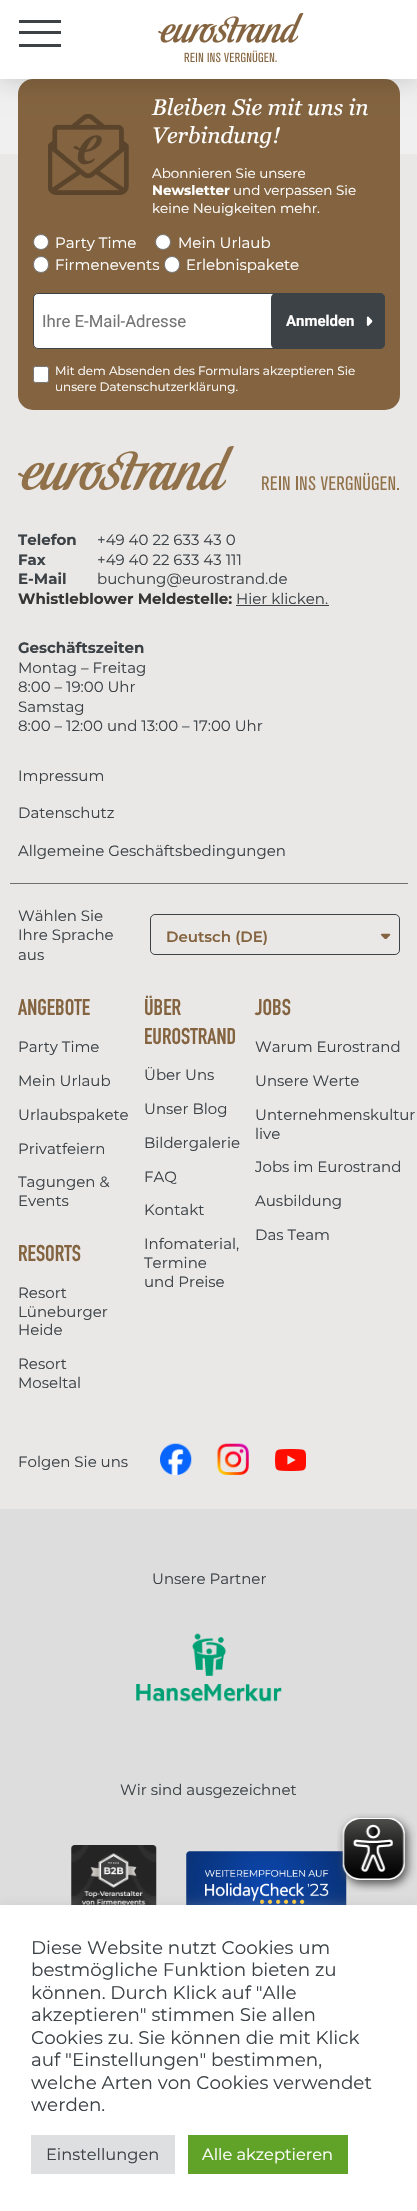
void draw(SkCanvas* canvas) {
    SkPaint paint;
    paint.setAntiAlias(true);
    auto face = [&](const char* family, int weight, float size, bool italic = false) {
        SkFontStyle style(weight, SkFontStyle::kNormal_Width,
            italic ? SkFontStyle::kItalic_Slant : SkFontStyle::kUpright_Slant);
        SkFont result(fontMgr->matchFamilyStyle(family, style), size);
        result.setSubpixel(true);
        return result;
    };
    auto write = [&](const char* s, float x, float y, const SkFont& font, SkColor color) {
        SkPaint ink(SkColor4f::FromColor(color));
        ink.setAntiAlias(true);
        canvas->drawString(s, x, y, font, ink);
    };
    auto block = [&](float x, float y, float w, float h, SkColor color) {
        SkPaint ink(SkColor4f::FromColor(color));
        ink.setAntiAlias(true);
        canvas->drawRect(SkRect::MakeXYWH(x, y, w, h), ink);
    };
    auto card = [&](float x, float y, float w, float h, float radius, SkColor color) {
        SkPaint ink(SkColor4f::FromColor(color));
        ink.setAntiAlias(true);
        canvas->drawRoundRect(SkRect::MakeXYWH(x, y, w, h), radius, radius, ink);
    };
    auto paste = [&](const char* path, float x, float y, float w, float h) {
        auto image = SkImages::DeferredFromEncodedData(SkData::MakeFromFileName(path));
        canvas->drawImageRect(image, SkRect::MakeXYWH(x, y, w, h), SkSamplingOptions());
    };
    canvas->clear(SkColorSetRGB(240, 240, 240));
    block(0, 154, 417, 1355, SkColorSetRGB(234, 232, 231));
    card(18, 79, 382, 331, 15, SkColorSetRGB(132, 100, 64));
    paste("pic2.png", 48, 114, 81, 81);
    paint.setColor(SkColorSetARGB(38, 0, 0, 0));
    paint.setMaskFilter(SkMaskFilter::MakeBlur(kNormal_SkBlurStyle, 11));
    canvas->drawRect(SkRect::MakeXYWH(0, 5, 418, 78), paint);
    paint.setMaskFilter(nullptr);
    block(0, 0, 417, 79, SK_ColorWHITE);
    block(19, 20, 42, 3, SkColorSetRGB(60, 66, 70));
    block(19, 31, 42, 3, SkColorSetRGB(60, 66, 70));
    block(19, 44, 42, 3, SkColorSetRGB(60, 66, 70));
    paste("pic1.png", 158, 13, 146, 50);
    auto kFont1 = face("Georgia", 400, 22.5f);
    write("Bleiben Sie mit uns in", 152, 115, kFont1, SK_ColorWHITE);
    write("Verbindung!", 152, 143, kFont1, SK_ColorWHITE);
    auto kFont2 = face("Montserrat", 400, 13.5f);
    write("Abonnieren Sie unsere", 152, 178, kFont2, SK_ColorWHITE);
    auto kFont3 = face("Montserrat", 700, 13.5f);
    write("Newsletter", 152, 195, kFont3, SK_ColorWHITE);
    write("und verpassen Sie", 233, 195, kFont2, SK_ColorWHITE);
    write("keine Neuigkeiten mehr.", 152, 213, kFont2, SK_ColorWHITE);
    paint.setColor(SK_ColorWHITE);
    canvas->drawCircle(41, 242, 7.5f, paint);
    paint.setStyle(SkPaint::kStroke_Style);
    paint.setStrokeWidth(1);
    paint.setColor(SkColorSetRGB(118, 118, 118));
    canvas->drawCircle(41, 242, 7.5f, paint);
    auto kFont4 = face("Montserrat", 400, 15);
    write("Party Time", 55, 248, kFont4, SK_ColorWHITE);
    paint.setStyle(SkPaint::kFill_Style);
    paint.setColor(SK_ColorWHITE);
    canvas->drawCircle(163, 242, 7.5f, paint);
    paint.setStyle(SkPaint::kStroke_Style);
    paint.setColor(SkColorSetRGB(118, 118, 118));
    canvas->drawCircle(163, 242, 7.5f, paint);
    write("Mein Urlaub", 178, 248, kFont4, SK_ColorWHITE);
    paint.setStyle(SkPaint::kFill_Style);
    paint.setColor(SK_ColorWHITE);
    canvas->drawRoundRect(SkRect::MakeXYWH(33.5f, 256.5f, 15, 16), 7.5f, 7.5f, paint);
    paint.setStyle(SkPaint::kStroke_Style);
    paint.setColor(SkColorSetRGB(118, 118, 118));
    canvas->drawRoundRect(SkRect::MakeXYWH(33.5f, 256.5f, 15, 16), 7.5f, 7.5f, paint);
    write("Firmenevents", 55, 270, kFont4, SK_ColorWHITE);
    paint.setStyle(SkPaint::kFill_Style);
    paint.setColor(SK_ColorWHITE);
    canvas->drawRoundRect(SkRect::MakeXYWH(164.5f, 256.5f, 15, 16), 7.5f, 7.5f, paint);
    paint.setStyle(SkPaint::kStroke_Style);
    paint.setColor(SkColorSetRGB(118, 118, 118));
    canvas->drawRoundRect(SkRect::MakeXYWH(164.5f, 256.5f, 15, 16), 7.5f, 7.5f, paint);
    write("Erlebnispakete", 186, 270, kFont4, SK_ColorWHITE);
    paint.setStyle(SkPaint::kFill_Style);
    paint.setColor(SK_ColorWHITE);
    canvas->drawRoundRect(SkRect::MakeXYWH(33.5f, 293.5f, 351, 55), 4.5f, 4.5f, paint);
    paint.setStyle(SkPaint::kStroke_Style);
    paint.setColor(SkColorSetRGB(60, 66, 70));
    canvas->drawRoundRect(SkRect::MakeXYWH(33.5f, 293.5f, 351, 55), 4.5f, 4.5f, paint);
    auto kFont5 = face("Roboto", 400, 16.75f);
    write("Ihre E-Mail-Adresse", 42, 327, kFont5, SkColorSetRGB(117, 117, 117));
    card(271, 293, 114, 56, 5, SkColorSetRGB(60, 66, 70));
    auto kFont6 = face("Roboto", 700, 15);
    write("Anmelden", 286, 326, kFont6, SK_ColorWHITE);
    paste("pic3.png", 366, 316, 7, 10);
    paint.setStyle(SkPaint::kFill_Style);
    paint.setColor(SK_ColorWHITE);
    canvas->drawRoundRect(SkRect::MakeXYWH(33.5f, 366.5f, 15, 16), 2, 2, paint);
    paint.setStyle(SkPaint::kStroke_Style);
    paint.setColor(SkColorSetRGB(118, 118, 118));
    canvas->drawRoundRect(SkRect::MakeXYWH(33.5f, 366.5f, 15, 16), 2, 2, paint);
    auto kFont7 = face("Montserrat", 400, 12);
    write("Mit dem Absenden des Formulars akzeptieren Sie", 55, 375, kFont7, SK_ColorWHITE);
    write("unsere Datenschutzerklärung.", 55, 391, kFont7, SK_ColorWHITE);
    block(10, 883, 398, 1, SkColorSetRGB(112, 112, 112));
    paste("pic4.png", 18, 445, 381, 46);
    auto kFont8 = face("Montserrat", 700, 15);
    write("Telefon", 18, 545, kFont8, SkColorSetRGB(60, 66, 70));
    write("+49 40 22 633 43 0", 97, 545, kFont4, SkColorSetRGB(60, 66, 70));
    write("Fax", 18, 565, kFont8, SkColorSetRGB(60, 66, 70));
    write("+49 40 22 633 43 111", 97, 565, kFont4, SkColorSetRGB(60, 66, 70));
    write("E-Mail", 18, 584, kFont8, SkColorSetRGB(60, 66, 70));
    write("buchung@eurostrand.de", 97, 584, kFont4, SkColorSetRGB(60, 66, 70));
    write("Whistleblower Meldestelle:", 18, 604, kFont8, SkColorSetRGB(54, 54, 54));
    write("Hier klicken.", 236, 604, kFont4, SkColorSetRGB(60, 66, 70));
    block(236, 605, 93, 1, SkColorSetRGB(60, 66, 70));
    write("Geschäftszeiten", 18, 653, kFont8, SkColorSetRGB(60, 66, 70));
    write("Montag – Freitag", 18, 673, kFont4, SkColorSetRGB(60, 66, 70));
    write("8:00 – 19:00 Uhr", 18, 692, kFont4, SkColorSetRGB(60, 66, 70));
    write("Samstag", 18, 712, kFont4, SkColorSetRGB(60, 66, 70));
    write("8:00 – 12:00 und 13:00 – 17:00 Uhr", 18, 731, kFont4, SkColorSetRGB(60, 66, 70));
    write("Impressum", 18, 781, kFont4, SkColorSetRGB(60, 66, 70));
    write("Datenschutz", 18, 818, kFont4, SkColorSetRGB(60, 66, 70));
    write("Allgemeine Geschäftsbedingungen", 18, 856, kFont4, SkColorSetRGB(60, 66, 70));
    write("Wählen Sie", 18, 921, kFont4, SkColorSetRGB(60, 66, 70));
    write("Ihre Sprache", 18, 940, kFont4, SkColorSetRGB(60, 66, 70));
    write("aus", 18, 960, kFont4, SkColorSetRGB(60, 66, 70));
    paint.setColor(SkColorSetRGB(60, 66, 70));
    canvas->drawRoundRect(SkRect::MakeXYWH(150.5f, 914.5f, 249, 40), 4.5f, 4.5f, paint);
    auto kFont9 = face("Montserrat", 600, 15);
    write("Deutsch (DE)", 166, 942, kFont9, SkColorSetRGB(132, 100, 64));
    paste("pic5.png", 381, 933, 10, 6);
    auto kFont10 = face("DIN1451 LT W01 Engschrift", 400, 22.5f);
    write("ANGEBOTE", 18, 1015, kFont10, SkColorSetRGB(132, 100, 64));
    write("Party Time", 18, 1052, kFont4, SkColorSetRGB(60, 66, 70));
    write("Mein Urlaub", 18, 1086, kFont4, SkColorSetRGB(60, 66, 70));
    write("Urlaubspakete", 18, 1120, kFont4, SkColorSetRGB(60, 66, 70));
    write("Privatfeiern", 18, 1154, kFont4, SkColorSetRGB(60, 66, 70));
    write("Tagungen &", 18, 1187, kFont4, SkColorSetRGB(60, 66, 70));
    write("Events", 18, 1206, kFont4, SkColorSetRGB(60, 66, 70));
    write("RESORTS", 18, 1261, kFont10, SkColorSetRGB(132, 100, 64));
    write("Resort", 18, 1298, kFont4, SkColorSetRGB(60, 66, 70));
    write("Lüneburger", 18, 1317, kFont4, SkColorSetRGB(60, 66, 70));
    write("Heide", 18, 1335, kFont4, SkColorSetRGB(60, 66, 70));
    write("Resort", 18, 1369, kFont4, SkColorSetRGB(60, 66, 70));
    write("Moseltal", 18, 1388, kFont4, SkColorSetRGB(60, 66, 70));
    write("ÜBER", 144, 1015, kFont10, SkColorSetRGB(132, 100, 64));
    write("EUROSTRAND", 144, 1044, kFont10, SkColorSetRGB(132, 100, 64));
    write("Über Uns", 144, 1080, kFont4, SkColorSetRGB(60, 66, 70));
    write("Unser Blog", 144, 1114, kFont4, SkColorSetRGB(60, 66, 70));
    write("Bildergalerie", 144, 1148, kFont4, SkColorSetRGB(60, 66, 70));
    write("FAQ", 144, 1182, kFont4, SkColorSetRGB(60, 66, 70));
    write("Kontakt", 144, 1215, kFont4, SkColorSetRGB(60, 66, 70));
    write("Infomaterial,", 144, 1249, kFont4, SkColorSetRGB(60, 66, 70));
    write("Termine", 144, 1268, kFont4, SkColorSetRGB(60, 66, 70));
    write("und Preise", 144, 1287, kFont4, SkColorSetRGB(60, 66, 70));
    write("JOBS", 255, 1015, kFont10, SkColorSetRGB(132, 100, 64));
    write("Warum Eurostrand", 255, 1052, kFont4, SkColorSetRGB(60, 66, 70));
    write("Unsere Werte", 255, 1086, kFont4, SkColorSetRGB(60, 66, 70));
    write("Unternehmenskultur", 255, 1120, kFont4, SkColorSetRGB(60, 66, 70));
    write("live", 255, 1139, kFont4, SkColorSetRGB(60, 66, 70));
    write("Jobs im Eurostrand", 255, 1172, kFont4, SkColorSetRGB(60, 66, 70));
    write("Ausbildung", 255, 1206, kFont4, SkColorSetRGB(60, 66, 70));
    write("Das Team", 255, 1240, kFont4, SkColorSetRGB(60, 66, 70));
    write("Folgen Sie uns", 18, 1467, kFont4, SkColorSetRGB(60, 66, 70));
    paste("pic6.png", 160, 1443, 32, 32);
    paste("pic7.png", 217, 1443, 32, 32);
    paste("pic8.png", 275, 1449, 31, 22);
    block(0, 1509, 417, 396, SkColorSetRGB(221, 221, 221));
    write("Unsere Partner", 152, 1584, kFont4, SkColorSetRGB(60, 66, 70));
    paste("pic9.png", 136, 1633, 146, 69);
    write("Wir sind ausgezeichnet", 120, 1795, kFont4, SkColorSetRGB(60, 66, 70));
    paste("pic10.png", 71, 1845, 86, 60);
    paste("pic11.png", 186, 1851, 161, 54);
    paint.setStyle(SkPaint::kFill_Style);
    paint.setColor(SkColorSetARGB(77, 172, 171, 171));
    paint.setMaskFilter(SkMaskFilter::MakeBlur(kNormal_SkBlurStyle, 6));
    canvas->drawRect(SkRect::MakeXYWH(0, 1904, 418, 306), paint);
    paint.setMaskFilter(nullptr);
    paste("pic12.png", 337, 1813, 79, 79);
    block(0, 1905, 417, 306, SK_ColorWHITE);
    auto kFont11 = face("Montserrat", 400, 18.3f);
    write("Diese Website nutzt Cookies um", 31, 1954, kFont11, SkColorSetRGB(60, 66, 70));
    write("bestmögliche Funktion bieten zu", 31, 1976, kFont11, SkColorSetRGB(60, 66, 70));
    write("können. Durch Klick auf \"Alle", 31, 1999, kFont11, SkColorSetRGB(60, 66, 70));
    write("akzeptieren\" stimmen Sie allen", 31, 2021, kFont11, SkColorSetRGB(60, 66, 70));
    write("Cookies zu. Sie können die mit Klick", 31, 2044, kFont11, SkColorSetRGB(60, 66, 70));
    write("auf \"Einstellungen\" bestimmen,", 31, 2066, kFont11, SkColorSetRGB(60, 66, 70));
    write("welche Arten von Cookies verwendet", 31, 2089, kFont11, SkColorSetRGB(60, 66, 70));
    write("werden.", 31, 2111, kFont11, SkColorSetRGB(60, 66, 70));
    block(31, 2135, 144, 39, SkColorSetRGB(222, 223, 224));
    auto kFont12 = face("Montserrat", 400, 16.25f);
    write("Einstellungen", 46, 2160, kFont12, SkColorSetRGB(60, 66, 70));
    block(188, 2135, 160, 39, SkColorSetRGB(97, 162, 41));
    write("Alle akzeptieren", 202, 2160, kFont12, SK_ColorWHITE);
}
